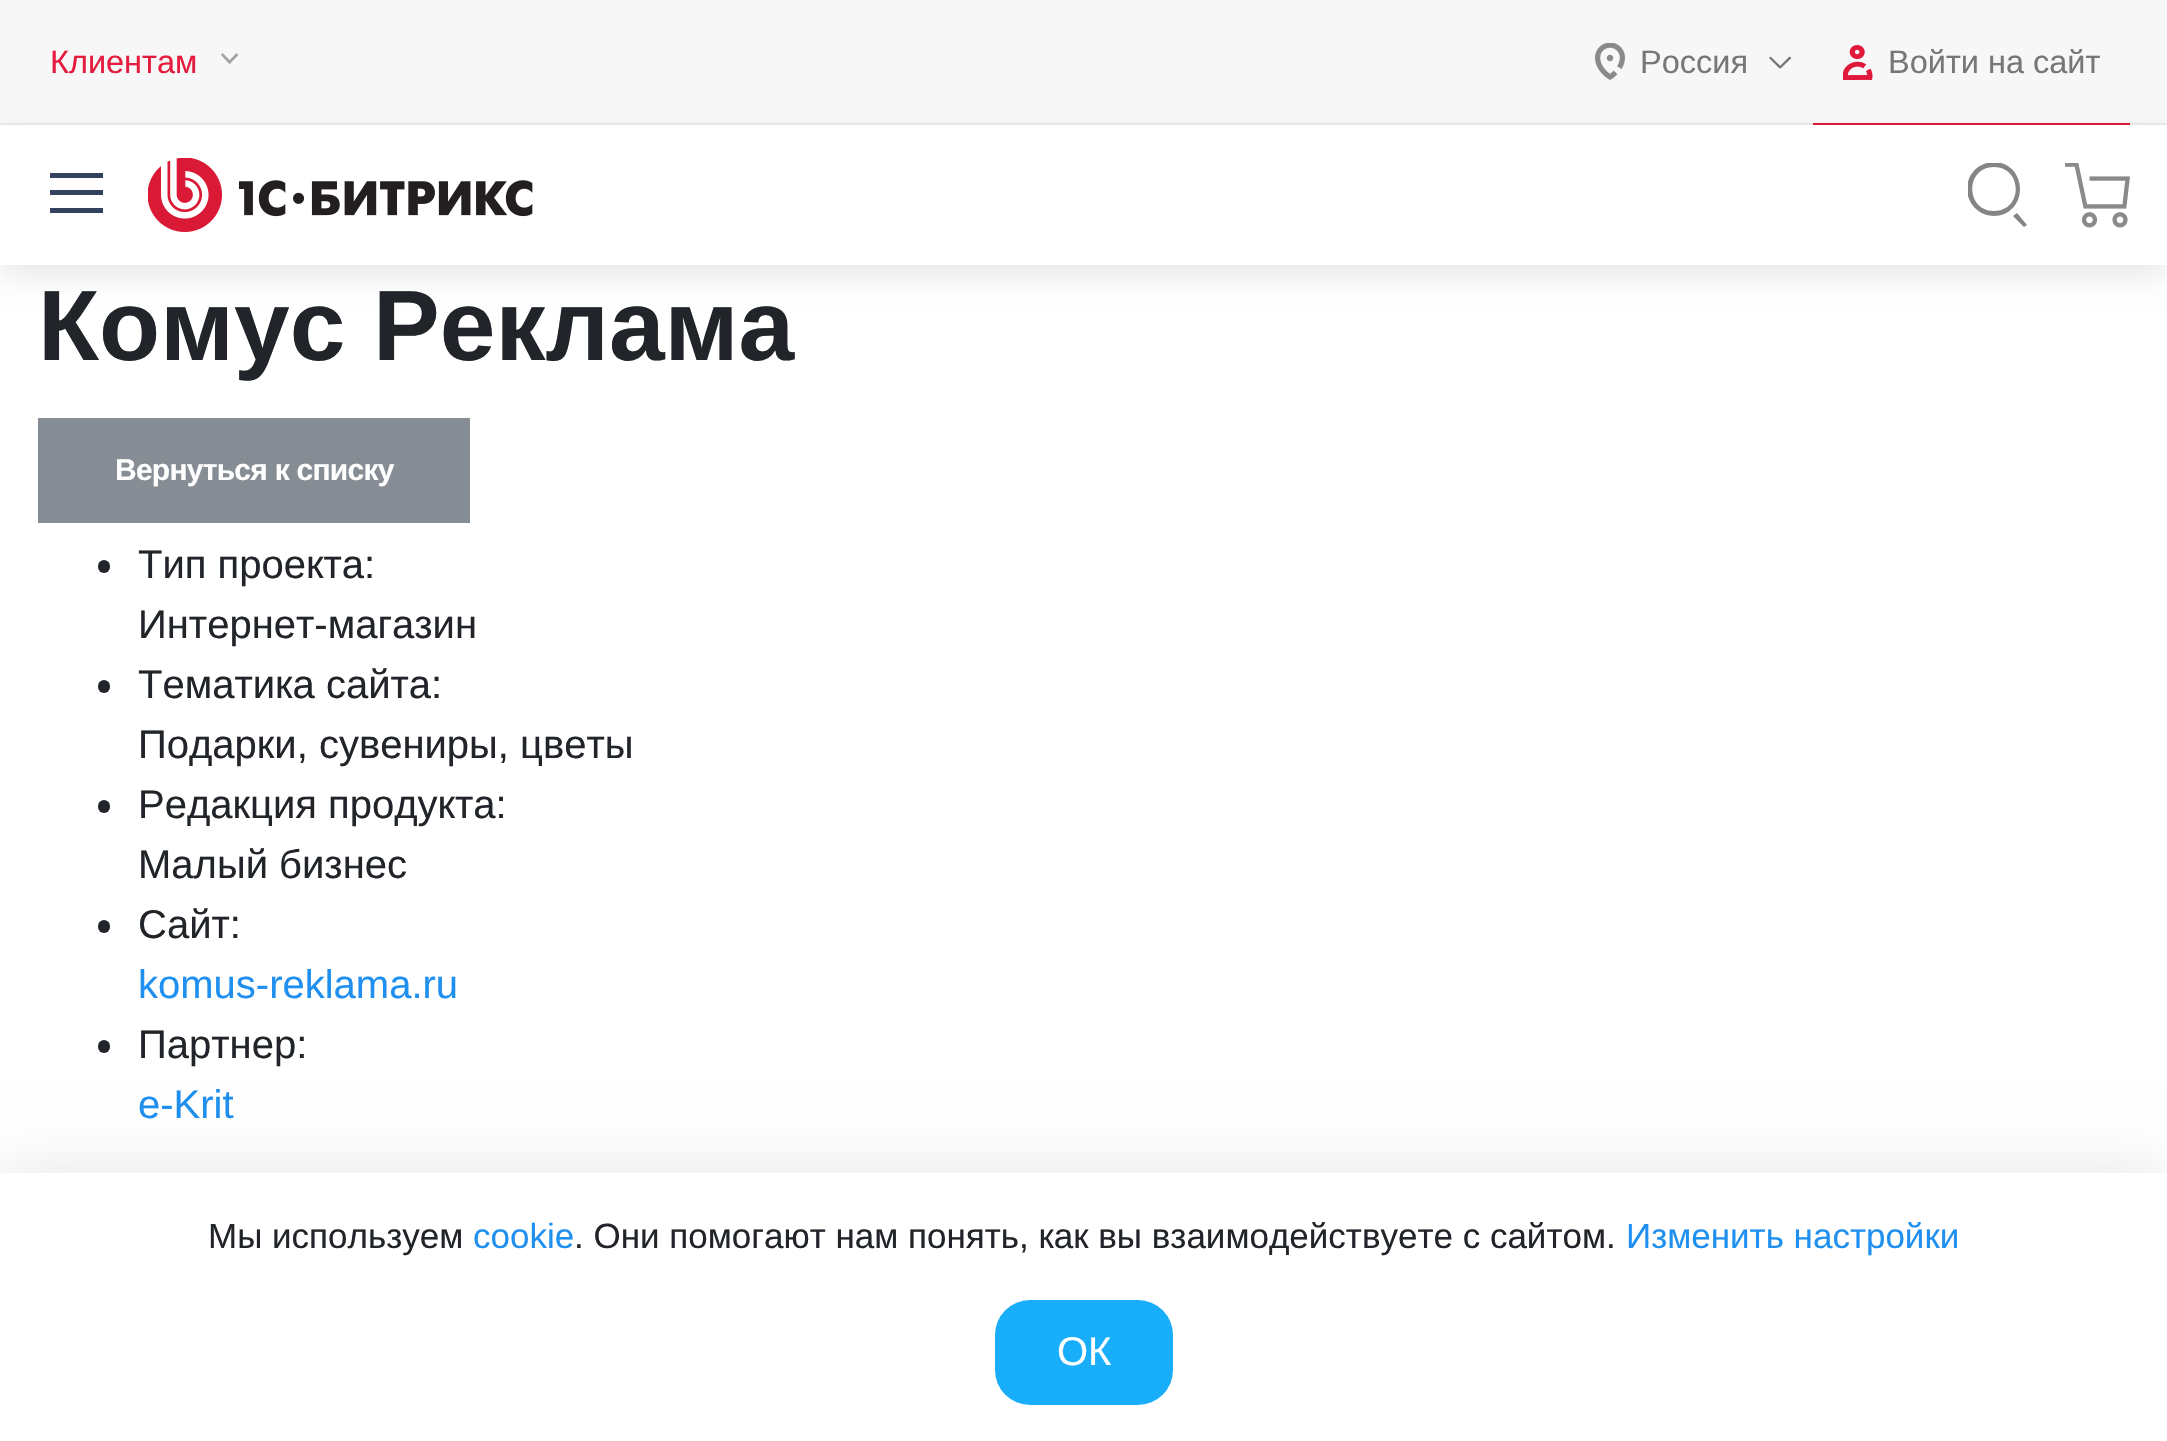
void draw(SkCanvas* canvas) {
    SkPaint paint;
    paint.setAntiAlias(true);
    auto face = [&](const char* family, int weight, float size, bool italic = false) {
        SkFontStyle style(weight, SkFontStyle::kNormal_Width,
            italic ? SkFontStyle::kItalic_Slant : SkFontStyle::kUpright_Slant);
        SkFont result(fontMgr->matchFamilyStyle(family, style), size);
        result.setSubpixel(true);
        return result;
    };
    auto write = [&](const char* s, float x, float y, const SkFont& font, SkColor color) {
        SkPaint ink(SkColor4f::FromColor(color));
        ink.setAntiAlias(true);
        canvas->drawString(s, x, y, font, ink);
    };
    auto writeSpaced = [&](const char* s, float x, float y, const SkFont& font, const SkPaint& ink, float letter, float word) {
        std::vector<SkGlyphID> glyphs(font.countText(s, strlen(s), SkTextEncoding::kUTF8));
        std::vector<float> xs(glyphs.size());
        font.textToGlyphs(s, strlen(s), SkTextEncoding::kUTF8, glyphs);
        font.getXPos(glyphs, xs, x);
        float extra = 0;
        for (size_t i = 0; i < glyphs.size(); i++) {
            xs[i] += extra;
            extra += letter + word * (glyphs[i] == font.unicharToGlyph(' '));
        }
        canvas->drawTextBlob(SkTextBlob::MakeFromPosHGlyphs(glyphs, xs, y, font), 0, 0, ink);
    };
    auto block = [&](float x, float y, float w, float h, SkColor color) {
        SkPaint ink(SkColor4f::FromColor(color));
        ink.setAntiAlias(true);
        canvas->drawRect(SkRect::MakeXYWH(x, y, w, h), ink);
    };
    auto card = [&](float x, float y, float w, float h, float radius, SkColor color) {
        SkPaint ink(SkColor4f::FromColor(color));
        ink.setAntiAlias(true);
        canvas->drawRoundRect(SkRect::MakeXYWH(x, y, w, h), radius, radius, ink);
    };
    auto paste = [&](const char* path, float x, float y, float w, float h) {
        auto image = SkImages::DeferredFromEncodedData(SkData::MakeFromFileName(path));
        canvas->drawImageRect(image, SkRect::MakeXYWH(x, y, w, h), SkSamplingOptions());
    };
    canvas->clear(SK_ColorWHITE);
    block(0, 0, 2167, 123, SkColorSetRGB(247, 247, 247));
    block(0, 123, 2167, 2, SkColorSetRGB(233, 233, 233));
    auto kFont1 = face("Liberation Sans", 400, 32.5f);
    write("Клиентам", 50, 73, kFont1, SkColorSetRGB(228, 28, 61));
    paint.setColor(SkColorSetRGB(161, 161, 161));
    canvas->drawPath(SkPathBuilder().moveTo(228, 62).lineTo(236.5f, 53).lineTo(238.5f, 55).lineTo(229.5f, 64).close().detach(), paint);
    canvas->drawPath(SkPathBuilder().moveTo(221, 55).lineTo(222.5f, 53).lineTo(231.5f, 62).lineTo(229.5f, 64).close().detach(), paint);
    paste("pic1.png", 1595, 43, 30, 37);
    write("Россия", 1640, 73, kFont1, SkColorSetRGB(119, 119, 119));
    paint.setColor(SkColorSetRGB(119, 119, 119));
    canvas->drawPath(SkPathBuilder().moveTo(1770.5f, 56.5f).lineTo(1781.5f, 67).lineTo(1779.5f, 68.5f).lineTo(1769, 58).close().detach(), paint);
    canvas->drawPath(SkPathBuilder().moveTo(1779, 67).lineTo(1789.5f, 56.5f).lineTo(1791.5f, 58).lineTo(1780.5f, 68.5f).close().detach(), paint);
    block(1813, 123, 317, 2, SkColorSetRGB(224, 24, 57));
    paste("pic2.png", 1843, 45, 30, 35);
    write("Войти на сайт", 1888, 73, kFont1, SkColorSetRGB(119, 119, 119));
    paint.setColor(SkColorSetARGB(20, 0, 0, 0));
    paint.setMaskFilter(SkMaskFilter::MakeBlur(kNormal_SkBlurStyle, 12.5f));
    canvas->drawRect(SkRect::MakeXYWH(0, 138, 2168, 140), paint);
    paint.setMaskFilter(nullptr);
    block(0, 125, 2167, 140, SK_ColorWHITE);
    block(50, 190, 53, 5, SkColorSetRGB(50, 66, 95));
    block(50, 173, 53, 5, SkColorSetRGB(50, 66, 95));
    block(50, 208, 53, 5, SkColorSetRGB(50, 66, 95));
    paste("pic3.png", 148, 158, 385, 74);
    canvas->save();
    canvas->clipRect(SkRect::MakeXYWH(1968, 163, 60, 65));
    paint.setColor(SkColorSetRGB(133, 133, 133));
    canvas->drawPath(SkPathBuilder(SkPathFillType::kEvenOdd).moveTo(1994, 216).cubicTo(1979, 216, 1967, 204, 1967, 189).cubicTo(1967, 174, 1979, 162, 1994, 162).cubicTo(2009, 162, 2020, 174, 2020, 189).cubicTo(2020, 204, 2009, 216, 1994, 216).close().moveTo(1994, 167).cubicTo(1965, 167, 1965, 211, 1994, 211).cubicTo(2023, 211, 2023, 167, 1994, 167).close().moveTo(2027, 225).lineTo(2024, 227).lineTo(2013, 216).lineTo(2017, 213).close().detach(), paint);
    canvas->restore();
    paste("pic4.png", 2065, 163, 65, 65);
    auto kFont2 = face("Liberation Sans", 700, 100);
    write("Комус Реклама", 38, 360, kFont2, SkColorSetRGB(33, 37, 41));
    block(38, 418, 432, 105, SkColorSetRGB(134, 141, 149));
    auto kFont3 = face("Liberation Sans", 700, 30);
    paint.setColor(SK_ColorWHITE);
    writeSpaced("Вернуться к списку", 115, 480, kFont3, paint, -0.75f, 0);
    card(98, 560, 12, 13, 6, SkColorSetRGB(33, 37, 41));
    auto kFont4 = face("Liberation Sans", 400, 40);
    write("Тип проекта:", 138, 578, kFont4, SkColorSetRGB(33, 37, 41));
    write("Интернет-магазин", 138, 638, kFont4, SkColorSetRGB(33, 37, 41));
    card(98, 680, 12, 13, 6, SkColorSetRGB(33, 37, 41));
    write("Тематика сайта:", 138, 698, kFont4, SkColorSetRGB(33, 37, 41));
    write("Подарки, сувениры, цветы", 138, 758, kFont4, SkColorSetRGB(33, 37, 41));
    card(98, 800, 12, 13, 6, SkColorSetRGB(33, 37, 41));
    write("Редакция продукта:", 138, 818, kFont4, SkColorSetRGB(33, 37, 41));
    write("Малый бизнес", 138, 878, kFont4, SkColorSetRGB(33, 37, 41));
    card(98, 920, 12, 13, 6, SkColorSetRGB(33, 37, 41));
    write("Сайт:", 138, 938, kFont4, SkColorSetRGB(33, 37, 41));
    write("komus-reklama.ru", 138, 998, kFont4, SkColorSetRGB(31, 144, 239));
    card(98, 1040, 12, 13, 6, SkColorSetRGB(33, 37, 41));
    write("Партнер:", 138, 1058, kFont4, SkColorSetRGB(33, 37, 41));
    write("e-Krit", 138, 1118, kFont4, SkColorSetRGB(31, 144, 239));
    paint.setColor(SkColorSetARGB(26, 0, 0, 0));
    paint.setMaskFilter(SkMaskFilter::MakeBlur(kNormal_SkBlurStyle, 30));
    canvas->drawRect(SkRect::MakeXYWH(0, 1173, 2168, 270), paint);
    paint.setMaskFilter(nullptr);
    block(0, 1173, 2167, 268, SK_ColorWHITE);
    auto kFont5 = face("Liberation Sans", 400, 35);
    write("Мы используем", 208, 1248, kFont5, SkColorSetRGB(33, 37, 41));
    write("cookie", 473, 1248, kFont5, SkColorSetRGB(31, 144, 239));
    write(". Они помогают нам понять, как вы взаимодействуете с сайтом.", 574, 1248, kFont5, SkColorSetRGB(33, 37, 41));
    write("Изменить настройки", 1626, 1248, kFont5, SkColorSetRGB(31, 144, 239));
    card(995, 1300, 178, 105, 35, SkColorSetRGB(25, 174, 249));
    write("ОК", 1057, 1365, kFont4, SK_ColorWHITE);
}
